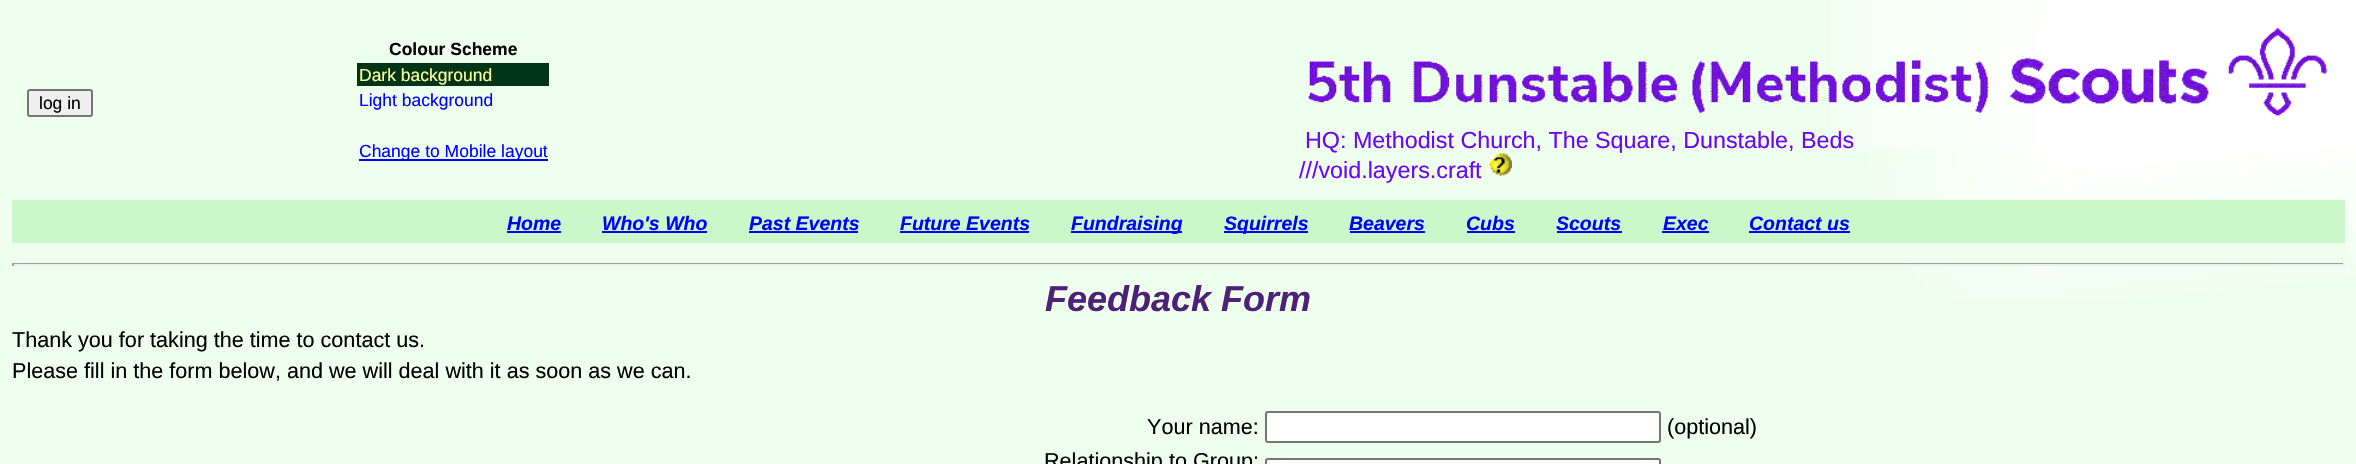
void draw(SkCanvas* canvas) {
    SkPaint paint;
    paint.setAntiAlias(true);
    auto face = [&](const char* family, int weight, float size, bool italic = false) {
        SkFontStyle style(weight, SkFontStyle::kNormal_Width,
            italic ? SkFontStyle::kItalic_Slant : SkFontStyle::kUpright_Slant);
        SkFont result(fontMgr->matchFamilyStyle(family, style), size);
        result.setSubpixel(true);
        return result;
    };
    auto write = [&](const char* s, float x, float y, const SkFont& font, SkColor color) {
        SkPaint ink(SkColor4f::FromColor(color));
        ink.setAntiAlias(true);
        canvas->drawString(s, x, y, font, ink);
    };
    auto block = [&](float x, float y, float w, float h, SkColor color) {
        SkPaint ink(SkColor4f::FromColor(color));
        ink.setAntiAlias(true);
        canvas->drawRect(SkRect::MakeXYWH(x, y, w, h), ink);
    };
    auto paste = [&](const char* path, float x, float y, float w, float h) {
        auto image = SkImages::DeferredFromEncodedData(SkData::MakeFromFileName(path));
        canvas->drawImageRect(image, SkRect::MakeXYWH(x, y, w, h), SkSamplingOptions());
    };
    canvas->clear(SkColorSetRGB(238, 255, 238));
    paste("pic1.png", 1831, 0, 525, 300);
    paint.setColor(SkColorSetRGB(239, 239, 239));
    canvas->drawRoundRect(SkRect::MakeXYWH(28, 90, 64, 26), 2, 2, paint);
    paint.setStyle(SkPaint::kStroke_Style);
    paint.setStrokeWidth(2);
    paint.setColor(SkColorSetRGB(118, 118, 118));
    canvas->drawRoundRect(SkRect::MakeXYWH(28, 90, 64, 26), 2, 2, paint);
    auto kFont1 = face("Liberation Sans", 400, 17.5f);
    write("log in", 39, 109, kFont1, SK_ColorBLACK);
    auto kFont2 = face("Liberation Sans", 700, 17.5f);
    write("Colour Scheme", 389, 55, kFont2, SK_ColorBLACK);
    block(357, 63, 192, 23, SkColorSetRGB(0, 52, 22));
    write("Dark background", 359, 81, kFont1, SkColorSetRGB(255, 255, 153));
    write("Light background", 359, 106, kFont1, SkColorSetRGB(0, 0, 255));
    block(359, 159, 189, 2, SkColorSetRGB(0, 0, 255));
    write("Change to Mobile layout", 359, 157, kFont1, SkColorSetRGB(0, 0, 255));
    paste("pic2.png", 1308, 28, 1020, 88);
    auto kFont3 = face("Liberation Sans", 400, 23.3f);
    write("HQ: Methodist Church, The Square, Dunstable, Beds", 1305, 148, kFont3, SkColorSetRGB(109, 5, 250));
    write("///void.layers.craft", 1299, 178, kFont3, SkColorSetRGB(109, 5, 250));
    paste("pic3.png", 1489, 153, 23, 23);
    block(1909, 243, 436, 20, SkColorSetRGB(238, 255, 238));
    block(12, 200, 2333, 43, SkColorSetRGB(203, 248, 203));
    auto kFont4 = face("Liberation Sans", 700, 19.5f, true);
    write("Home", 507, 230, kFont4, SkColorSetRGB(0, 0, 255));
    block(507, 231, 54, 2, SkColorSetRGB(0, 0, 255));
    write("Who's Who", 602, 230, kFont4, SkColorSetRGB(0, 0, 255));
    block(602, 231, 105, 2, SkColorSetRGB(0, 0, 255));
    write("Past Events", 749, 230, kFont4, SkColorSetRGB(0, 0, 255));
    block(749, 231, 109, 2, SkColorSetRGB(0, 0, 255));
    write("Future Events", 900, 230, kFont4, SkColorSetRGB(0, 0, 255));
    block(900, 231, 129, 2, SkColorSetRGB(0, 0, 255));
    block(1071, 231, 111, 2, SkColorSetRGB(0, 0, 255));
    write("Fundraising", 1071, 230, kFont4, SkColorSetRGB(0, 0, 255));
    block(1224, 231, 84, 2, SkColorSetRGB(0, 0, 255));
    write("Squirrels", 1224, 230, kFont4, SkColorSetRGB(0, 0, 255));
    write("Beavers", 1349, 230, kFont4, SkColorSetRGB(0, 0, 255));
    block(1350, 231, 75, 2, SkColorSetRGB(0, 0, 255));
    write("Cubs", 1466, 230, kFont4, SkColorSetRGB(0, 0, 255));
    block(1467, 231, 48, 2, SkColorSetRGB(0, 0, 255));
    write("Scouts", 1556, 230, kFont4, SkColorSetRGB(0, 0, 255));
    block(1557, 231, 65, 2, SkColorSetRGB(0, 0, 255));
    write("Exec", 1663, 230, kFont4, SkColorSetRGB(0, 0, 255));
    block(1662, 231, 47, 2, SkColorSetRGB(0, 0, 255));
    write("Contact us", 1749, 230, kFont4, SkColorSetRGB(0, 0, 255));
    block(1749, 231, 101, 2, SkColorSetRGB(0, 0, 255));
    block(12, 263, 2333, 1, SkColorSetRGB(159, 159, 159));
    block(2343, 263, 2, 3, SkColorSetRGB(238, 238, 238));
    block(12, 264, 2333, 2, SkColorSetRGB(238, 238, 238));
    block(12, 263, 2, 3, SkColorSetRGB(159, 159, 159));
    auto kFont5 = face("Liberation Sans", 700, 36, true);
    write("Feedback Form", 1045, 311, kFont5, SkColorSetRGB(77, 33, 119));
    auto kFont6 = face("Liberation Sans", 400, 21.6f);
    write("Thank you for taking the time to contact us.", 12, 347, kFont6, SK_ColorBLACK);
    write("Please fill in the form below, and we will deal with it as soon as we can.", 12, 378, kFont6, SK_ColorBLACK);
    write("Your name:", 1147, 434, kFont6, SK_ColorBLACK);
    paint.setStyle(SkPaint::kFill_Style);
    paint.setColor(SK_ColorWHITE);
    canvas->drawRoundRect(SkRect::MakeXYWH(1266, 412, 394, 30), 2, 2, paint);
    paint.setStyle(SkPaint::kStroke_Style);
    paint.setColor(SkColorSetRGB(118, 118, 118));
    canvas->drawRoundRect(SkRect::MakeXYWH(1266, 412, 394, 30), 2, 2, paint);
    write("(optional)", 1667, 434, kFont6, SK_ColorBLACK);
    write("Relationship to Group:", 1044, 468, kFont6, SK_ColorBLACK);
    paint.setStyle(SkPaint::kFill_Style);
    paint.setColor(SK_ColorWHITE);
    canvas->drawRoundRect(SkRect::MakeXYWH(1266, 459, 394, 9), 2, 2, paint);
    paint.setStyle(SkPaint::kStroke_Style);
    paint.setColor(SkColorSetRGB(118, 118, 118));
    canvas->drawRoundRect(SkRect::MakeXYWH(1266, 459, 394, 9), 2, 2, paint);
}
